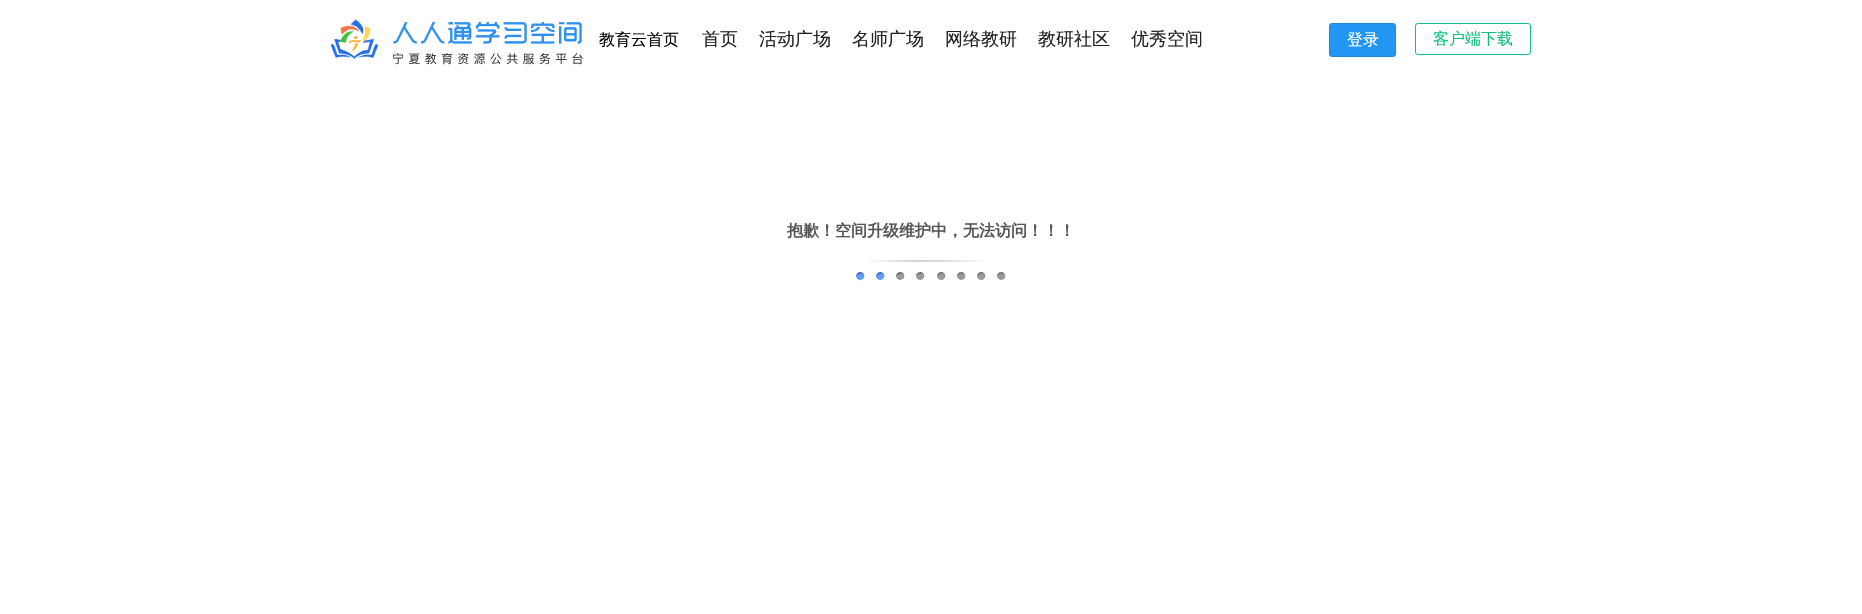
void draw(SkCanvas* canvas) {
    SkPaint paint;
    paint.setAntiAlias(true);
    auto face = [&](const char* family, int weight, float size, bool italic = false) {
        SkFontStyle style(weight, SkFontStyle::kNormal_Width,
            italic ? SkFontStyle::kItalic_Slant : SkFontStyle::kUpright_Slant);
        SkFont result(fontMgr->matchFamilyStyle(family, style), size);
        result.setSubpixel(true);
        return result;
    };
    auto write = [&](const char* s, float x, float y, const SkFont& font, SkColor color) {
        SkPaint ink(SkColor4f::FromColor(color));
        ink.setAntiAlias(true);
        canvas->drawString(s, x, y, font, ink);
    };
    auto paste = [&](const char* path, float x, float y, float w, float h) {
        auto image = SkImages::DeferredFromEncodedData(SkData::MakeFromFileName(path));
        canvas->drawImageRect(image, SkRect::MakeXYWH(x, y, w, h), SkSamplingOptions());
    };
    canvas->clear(SK_ColorWHITE);
    paste("pic1.png", 331, 19, 252, 46);
    auto kFont1 = face("WenQuanYi Zen Hei", 500, 16);
    write("教育云首页", 599, 45, kFont1, SK_ColorBLACK);
    auto kFont2 = face("WenQuanYi Zen Hei", 500, 18);
    write("首页", 702, 45, kFont2, SkColorSetRGB(34, 34, 34));
    write("活动广场", 759, 45, kFont2, SkColorSetRGB(34, 34, 34));
    write("名师广场", 852, 45, kFont2, SkColorSetRGB(34, 34, 34));
    write("网络教研", 945, 45, kFont2, SkColorSetRGB(34, 34, 34));
    write("教研社区", 1038, 45, kFont2, SkColorSetRGB(34, 34, 34));
    write("优秀空间", 1131, 45, kFont2, SkColorSetRGB(34, 34, 34));
    paint.setColor(SkColorSetRGB(33, 150, 243));
    canvas->drawRoundRect(SkRect::MakeXYWH(1329.5f, 23.5f, 66, 33), 2.5f, 2.5f, paint);
    paint.setStyle(SkPaint::kStroke_Style);
    paint.setStrokeWidth(1);
    paint.setColor(SkColorSetRGB(36, 135, 213));
    canvas->drawRoundRect(SkRect::MakeXYWH(1329.5f, 23.5f, 66, 33), 2.5f, 2.5f, paint);
    write("登录", 1347, 45, kFont1, SK_ColorWHITE);
    paint.setColor(SkColorSetRGB(17, 192, 128));
    canvas->drawRoundRect(SkRect::MakeXYWH(1415.5f, 23.5f, 115, 31), 2.5f, 2.5f, paint);
    write("客户端下载", 1433, 44, kFont1, SkColorSetRGB(17, 192, 128));
    paste("pic2.png", 868, 260, 114, 2);
    auto kFont3 = face("WenQuanYi Zen Hei", 700, 16);
    write("抱歉！空间升级维护中，无法访问！！！", 787, 236, kFont3, SkColorSetRGB(85, 85, 85));
    paste("pic3.png", 856, 272, 150, 9);
}
